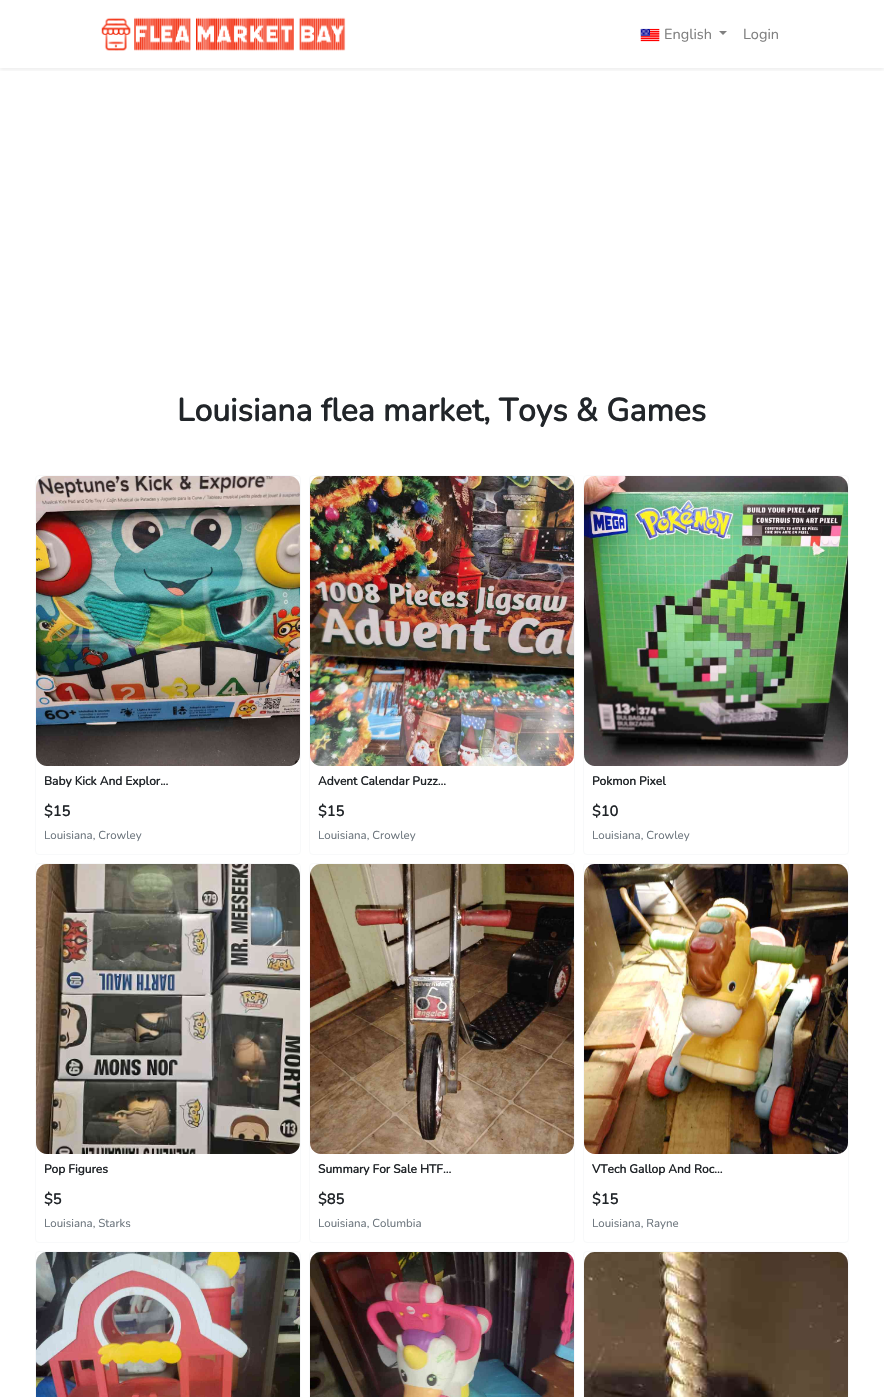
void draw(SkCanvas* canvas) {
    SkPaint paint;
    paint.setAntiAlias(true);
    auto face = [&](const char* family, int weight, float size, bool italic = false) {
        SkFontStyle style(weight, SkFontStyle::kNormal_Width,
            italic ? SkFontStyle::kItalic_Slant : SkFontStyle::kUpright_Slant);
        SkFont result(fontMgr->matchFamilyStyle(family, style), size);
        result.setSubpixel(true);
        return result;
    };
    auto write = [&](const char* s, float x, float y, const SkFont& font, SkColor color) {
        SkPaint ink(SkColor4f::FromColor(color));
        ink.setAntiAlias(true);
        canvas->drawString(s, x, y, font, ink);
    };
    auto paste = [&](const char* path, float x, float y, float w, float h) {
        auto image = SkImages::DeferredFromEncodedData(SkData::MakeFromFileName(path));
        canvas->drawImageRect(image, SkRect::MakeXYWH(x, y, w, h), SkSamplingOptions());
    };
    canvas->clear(SK_ColorWHITE);
    canvas->save();
    canvas->clipRect(SkRect::MakeXYWH(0, 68, 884, 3));
    paint.setColor(SkColorSetARGB(18, 0, 0, 0));
    paint.setMaskFilter(SkMaskFilter::MakeBlur(kNormal_SkBlurStyle, 2));
    canvas->drawRect(SkRect::MakeXYWH(0, 2, 884, 68), paint);
    paint.setMaskFilter(nullptr);
    canvas->restore();
    paste("pic1.png", 101, 17, 245, 34);
    paste("pic2.png", 640, 28, 20, 14);
    auto kFont1 = face("Nunito", 200, 14.5f);
    write("English", 664, 39, kFont1, SkColorSetRGB(128, 128, 128));
    paint.setColor(SkColorSetRGB(128, 128, 128));
    canvas->drawPath(SkPathBuilder().moveTo(719, 31).lineTo(727, 31).lineTo(723, 35).close().detach(), paint);
    write("Login", 743, 39, kFont1, SkColorSetRGB(128, 128, 128));
    auto kFont2 = face("Nunito", 700, 32);
    write("Louisiana flea market, Toys & Games", 177, 421, kFont2, SkColorSetRGB(33, 37, 41));
    paint.setStyle(SkPaint::kStroke_Style);
    paint.setStrokeWidth(1);
    paint.setColor(SkColorSetRGB(248, 249, 250));
    canvas->drawRoundRect(SkRect::MakeXYWH(35.5f, 475.5f, 265, 379), 3.5f, 3.5f, paint);
    paste("pic3.png", 36, 476, 264, 290);
    auto kFont3 = face("Nunito", 700, 12);
    write("Baby Kick And Explor...", 44, 785, kFont3, SkColorSetRGB(33, 37, 41));
    auto kFont4 = face("Nunito", 700, 14.5f);
    write("$15", 44, 816, kFont4, SkColorSetRGB(33, 37, 41));
    auto kFont5 = face("Nunito", 200, 11.5f);
    write("Louisiana, Crowley", 44, 839, kFont5, SkColorSetRGB(108, 117, 125));
    canvas->drawRoundRect(SkRect::MakeXYWH(309.5f, 475.5f, 265, 379), 3.5f, 3.5f, paint);
    paste("pic4.png", 310, 476, 264, 290);
    write("Advent Calendar Puzz...", 318, 785, kFont3, SkColorSetRGB(33, 37, 41));
    write("$15", 318, 816, kFont4, SkColorSetRGB(33, 37, 41));
    write("Louisiana, Crowley", 318, 839, kFont5, SkColorSetRGB(108, 117, 125));
    canvas->drawRoundRect(SkRect::MakeXYWH(583.5f, 475.5f, 265, 379), 3.5f, 3.5f, paint);
    paste("pic5.png", 584, 476, 264, 290);
    write("Pokmon Pixel", 592, 785, kFont3, SkColorSetRGB(33, 37, 41));
    write("$10", 592, 816, kFont4, SkColorSetRGB(33, 37, 41));
    write("Louisiana, Crowley", 592, 839, kFont5, SkColorSetRGB(108, 117, 125));
    canvas->drawRoundRect(SkRect::MakeXYWH(35.5f, 863.5f, 265, 379), 3.5f, 3.5f, paint);
    paste("pic6.png", 36, 864, 264, 290);
    write("Pop Figures", 44, 1173, kFont3, SkColorSetRGB(33, 37, 41));
    write("$5", 44, 1204, kFont4, SkColorSetRGB(33, 37, 41));
    write("Louisiana, Starks", 44, 1227, kFont5, SkColorSetRGB(108, 117, 125));
    canvas->drawRoundRect(SkRect::MakeXYWH(309.5f, 863.5f, 265, 379), 3.5f, 3.5f, paint);
    paste("pic7.png", 310, 864, 264, 290);
    write("Summary For Sale HTF...", 318, 1173, kFont3, SkColorSetRGB(33, 37, 41));
    write("$85", 318, 1204, kFont4, SkColorSetRGB(33, 37, 41));
    write("Louisiana, Columbia", 318, 1227, kFont5, SkColorSetRGB(108, 117, 125));
    canvas->drawRoundRect(SkRect::MakeXYWH(583.5f, 863.5f, 265, 379), 3.5f, 3.5f, paint);
    paste("pic8.png", 584, 864, 264, 290);
    write("VTech Gallop And Roc...", 592, 1173, kFont3, SkColorSetRGB(33, 37, 41));
    write("$15", 592, 1204, kFont4, SkColorSetRGB(33, 37, 41));
    write("Louisiana, Rayne", 592, 1227, kFont5, SkColorSetRGB(108, 117, 125));
    canvas->drawRoundRect(SkRect::MakeXYWH(35.5f, 1251.5f, 265, 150), 3.5f, 3.5f, paint);
    paste("pic9.png", 36, 1252, 264, 145);
    canvas->drawRoundRect(SkRect::MakeXYWH(309.5f, 1251.5f, 265, 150), 3.5f, 3.5f, paint);
    paste("pic10.png", 310, 1252, 264, 145);
    canvas->drawRoundRect(SkRect::MakeXYWH(583.5f, 1251.5f, 265, 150), 3.5f, 3.5f, paint);
    paste("pic11.png", 584, 1252, 264, 145);
}
